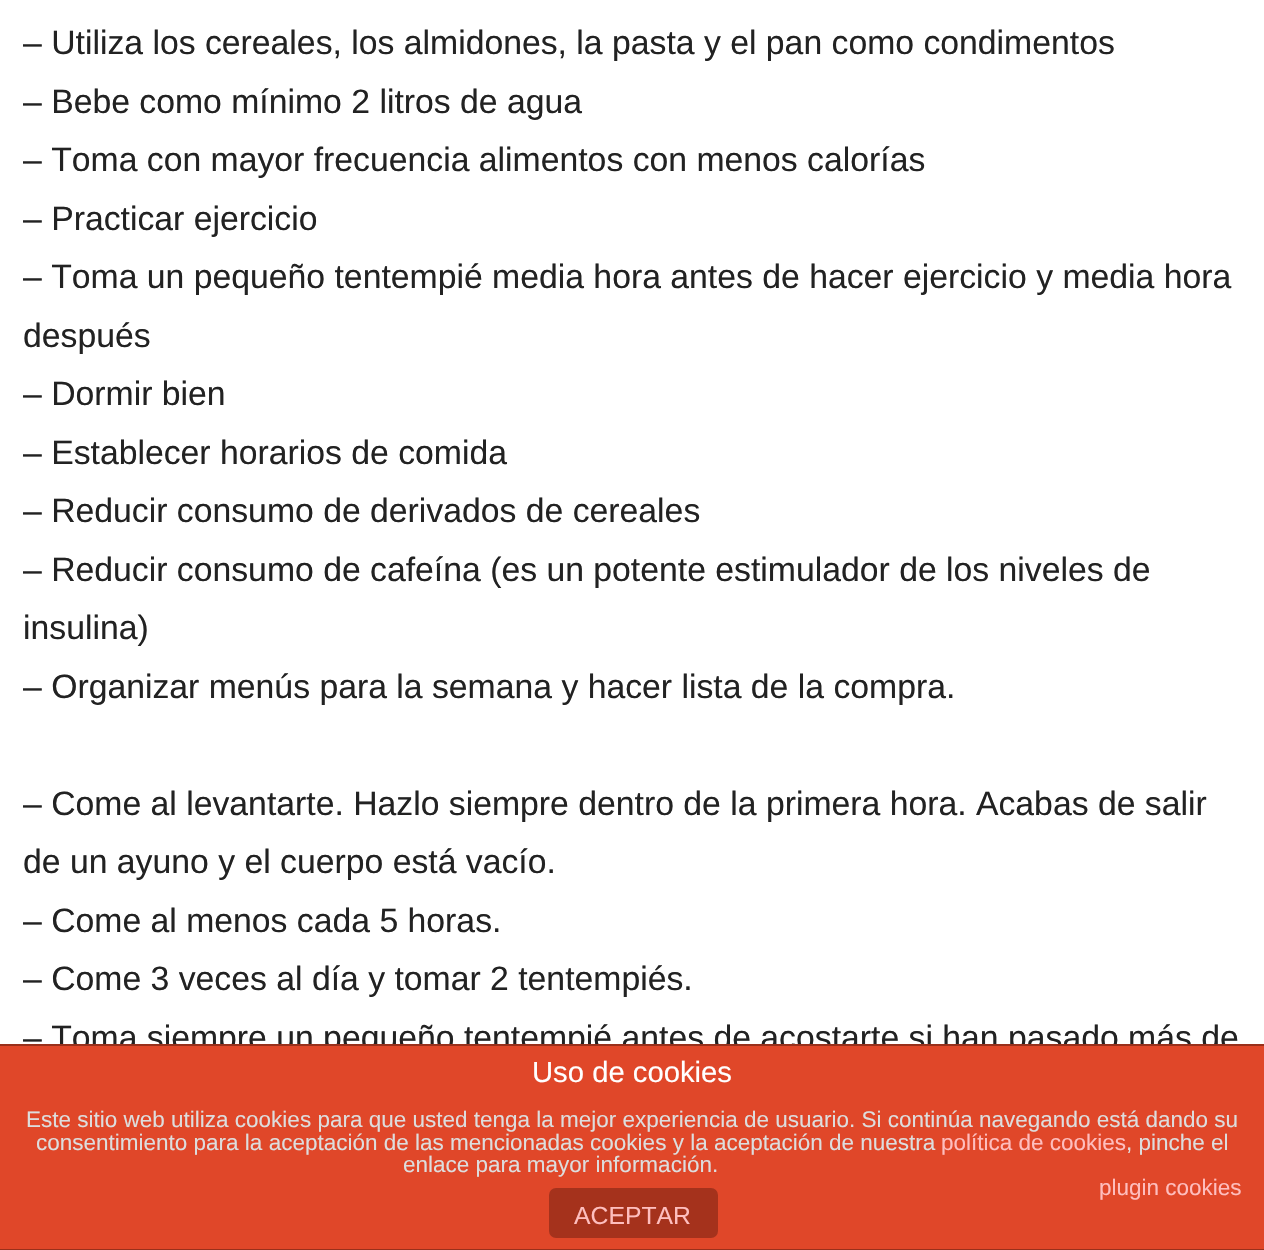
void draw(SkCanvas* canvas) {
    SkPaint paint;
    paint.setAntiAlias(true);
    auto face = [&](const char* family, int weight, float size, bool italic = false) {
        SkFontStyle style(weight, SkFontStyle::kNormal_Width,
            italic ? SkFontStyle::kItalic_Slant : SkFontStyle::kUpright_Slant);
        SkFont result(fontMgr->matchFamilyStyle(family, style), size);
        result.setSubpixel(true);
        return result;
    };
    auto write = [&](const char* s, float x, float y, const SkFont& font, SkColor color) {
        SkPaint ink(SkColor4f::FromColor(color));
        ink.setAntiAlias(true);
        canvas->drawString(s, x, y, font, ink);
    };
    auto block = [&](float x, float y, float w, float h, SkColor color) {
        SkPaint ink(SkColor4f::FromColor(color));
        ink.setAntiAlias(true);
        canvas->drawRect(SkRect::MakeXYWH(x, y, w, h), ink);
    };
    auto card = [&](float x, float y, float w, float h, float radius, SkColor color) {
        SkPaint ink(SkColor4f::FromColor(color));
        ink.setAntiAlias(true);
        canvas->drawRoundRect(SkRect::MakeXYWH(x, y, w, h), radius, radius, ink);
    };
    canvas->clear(SK_ColorWHITE);
    auto kFont1 = face("Liberation Sans", 400, 33.75f);
    write("– Utiliza los cereales, los almidones, la pasta y el pan como condimentos", 23, 54, kFont1, SkColorSetRGB(34, 34, 34));
    write("– Bebe como mínimo 2 litros de agua", 23, 113, kFont1, SkColorSetRGB(34, 34, 34));
    write("– Toma con mayor frecuencia alimentos con menos calorías", 23, 171, kFont1, SkColorSetRGB(34, 34, 34));
    write("– Practicar ejercicio", 23, 230, kFont1, SkColorSetRGB(34, 34, 34));
    write("– Toma un pequeño tentempié media hora antes de hacer ejercicio y media hora", 23, 288, kFont1, SkColorSetRGB(34, 34, 34));
    write("después", 23, 347, kFont1, SkColorSetRGB(34, 34, 34));
    write("– Dormir bien", 23, 405, kFont1, SkColorSetRGB(34, 34, 34));
    write("– Establecer horarios de comida", 23, 464, kFont1, SkColorSetRGB(34, 34, 34));
    write("– Reducir consumo de derivados de cereales", 23, 522, kFont1, SkColorSetRGB(34, 34, 34));
    write("– Reducir consumo de cafeína (es un potente estimulador de los niveles de", 23, 581, kFont1, SkColorSetRGB(34, 34, 34));
    write("insulina)", 23, 639, kFont1, SkColorSetRGB(34, 34, 34));
    write("– Organizar menús para la semana y hacer lista de la compra.", 23, 698, kFont1, SkColorSetRGB(34, 34, 34));
    write("– Come al levantarte. Hazlo siempre dentro de la primera hora. Acabas de salir", 23, 815, kFont1, SkColorSetRGB(34, 34, 34));
    write("de un ayuno y el cuerpo está vacío.", 23, 873, kFont1, SkColorSetRGB(34, 34, 34));
    write("– Come al menos cada 5 horas.", 23, 932, kFont1, SkColorSetRGB(34, 34, 34));
    write("– Come 3 veces al día y tomar 2 tentempiés.", 23, 990, kFont1, SkColorSetRGB(34, 34, 34));
    write("– Toma siempre un pequeño tentempié antes de acostarte si han pasado más de", 23, 1049, kFont1, SkColorSetRGB(34, 34, 34));
    block(0, 1046, 1264, 203, SkColorSetRGB(224, 71, 41));
    block(0, 1044, 1264, 2, SkColorSetRGB(153, 48, 27));
    block(0, 1249, 1264, 1, SkColorSetRGB(153, 48, 27));
    auto kFont2 = face("Liberation Sans", 400, 29.25f);
    write("Uso de cookies", 532, 1082, kFont2, SK_ColorWHITE);
    auto kFont3 = face("Liberation Sans", 400, 22.5f);
    write("Este sitio web utiliza cookies para que usted tenga la mejor experiencia de usuario. Si continúa navegando está dando su", 26, 1127, kFont3, SkColorSetRGB(221, 221, 221));
    write("consentimiento para la aceptación de las mencionadas cookies y la aceptación de nuestra", 36, 1150, kFont3, SkColorSetRGB(221, 221, 221));
    write("política de cookies", 941, 1150, kFont3, SkColorSetRGB(254, 190, 190));
    write(", pinche el", 1126, 1150, kFont3, SkColorSetRGB(221, 221, 221));
    write("enlace para mayor información.", 403, 1172, kFont3, SkColorSetRGB(221, 221, 221));
    write("plugin cookies", 1099, 1195, kFont3, SkColorSetRGB(254, 190, 190));
    card(549, 1188, 169, 50, 7, SkColorSetRGB(165, 50, 28));
    auto kFont4 = face("Liberation Sans", 400, 24.75f);
    write("ACEPTAR", 574, 1224, kFont4, SkColorSetRGB(254, 190, 190));
}
